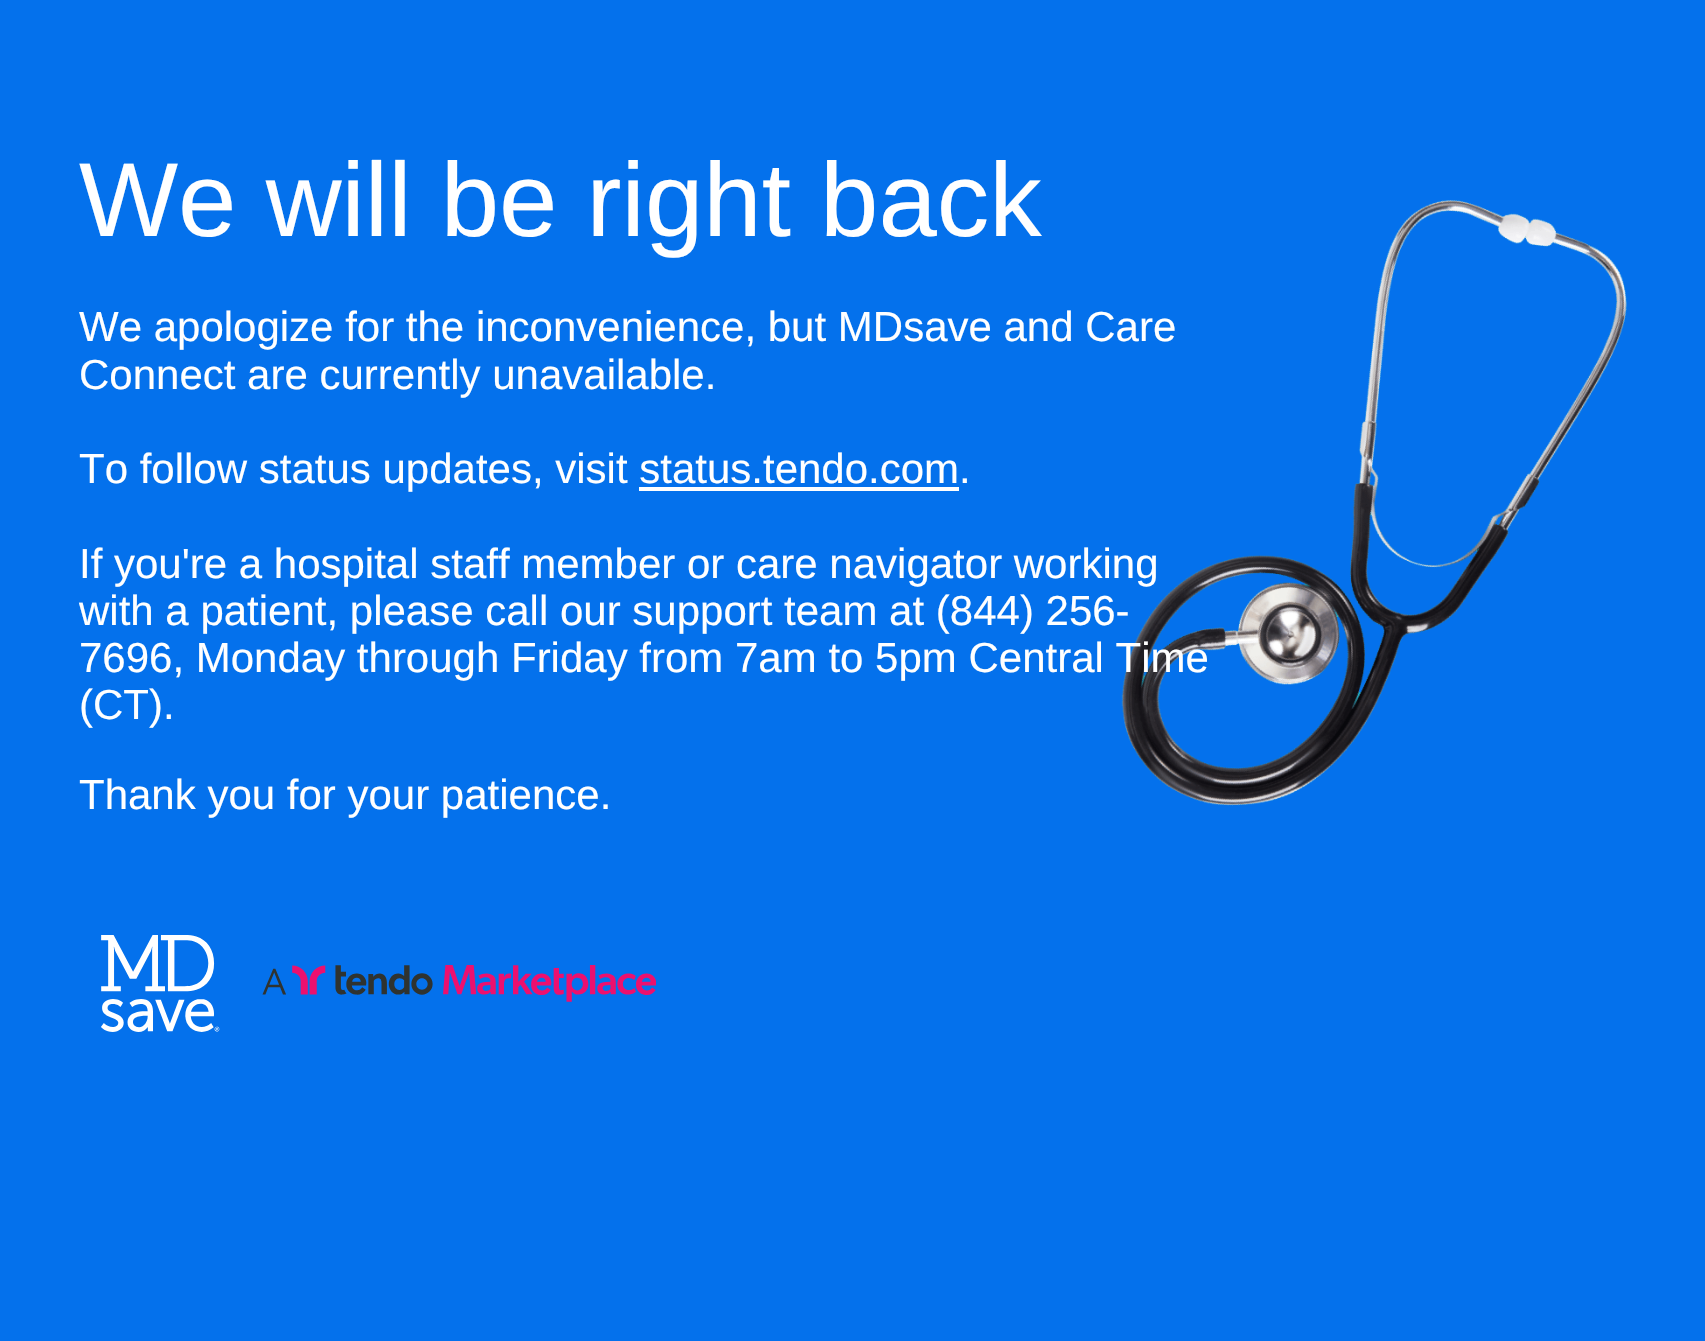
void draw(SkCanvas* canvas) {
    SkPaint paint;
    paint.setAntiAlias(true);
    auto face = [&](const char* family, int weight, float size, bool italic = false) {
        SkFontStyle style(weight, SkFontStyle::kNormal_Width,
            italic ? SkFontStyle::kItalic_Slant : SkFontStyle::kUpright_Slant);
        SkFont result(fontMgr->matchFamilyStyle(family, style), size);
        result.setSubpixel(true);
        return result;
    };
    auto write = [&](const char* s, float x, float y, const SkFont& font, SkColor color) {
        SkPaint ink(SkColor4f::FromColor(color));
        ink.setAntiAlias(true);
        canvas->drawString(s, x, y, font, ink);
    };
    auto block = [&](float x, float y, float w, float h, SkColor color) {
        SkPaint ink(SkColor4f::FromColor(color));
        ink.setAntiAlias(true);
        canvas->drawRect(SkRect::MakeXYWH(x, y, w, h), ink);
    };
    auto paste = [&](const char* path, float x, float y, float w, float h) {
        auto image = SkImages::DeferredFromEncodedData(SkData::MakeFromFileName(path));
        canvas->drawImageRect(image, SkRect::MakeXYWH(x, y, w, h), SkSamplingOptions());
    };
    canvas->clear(SkColorSetRGB(4, 113, 236));
    auto kFont1 = face("Liberation Sans", 400, 105);
    write("We will be right back", 79, 236, kFont1, SK_ColorWHITE);
    paste("pic1.png", 1121, 200, 506, 606);
    auto kFont2 = face("Liberation Sans", 400, 42);
    write("We apologize for the inconvenience, but MDsave and Care", 79, 341, kFont2, SK_ColorWHITE);
    write("Connect are currently unavailable.", 79, 389, kFont2, SK_ColorWHITE);
    write("To follow status updates, visit status.tendo.com.", 79, 483, kFont2, SK_ColorWHITE);
    block(639, 487, 320, 4, SK_ColorWHITE);
    write("If you're a hospital staff member or care navigator working", 79, 578, kFont2, SK_ColorWHITE);
    write("with a patient, please call our support team at (844) 256-", 79, 625, kFont2, SK_ColorWHITE);
    write("7696, Monday through Friday from 7am to 5pm Central Time", 79, 672, kFont2, SK_ColorWHITE);
    write("(CT).", 79, 719, kFont2, SK_ColorWHITE);
    write("Thank you for your patience.", 79, 809, kFont2, SK_ColorWHITE);
    paste("pic2.png", 101, 935, 555, 97);
}
